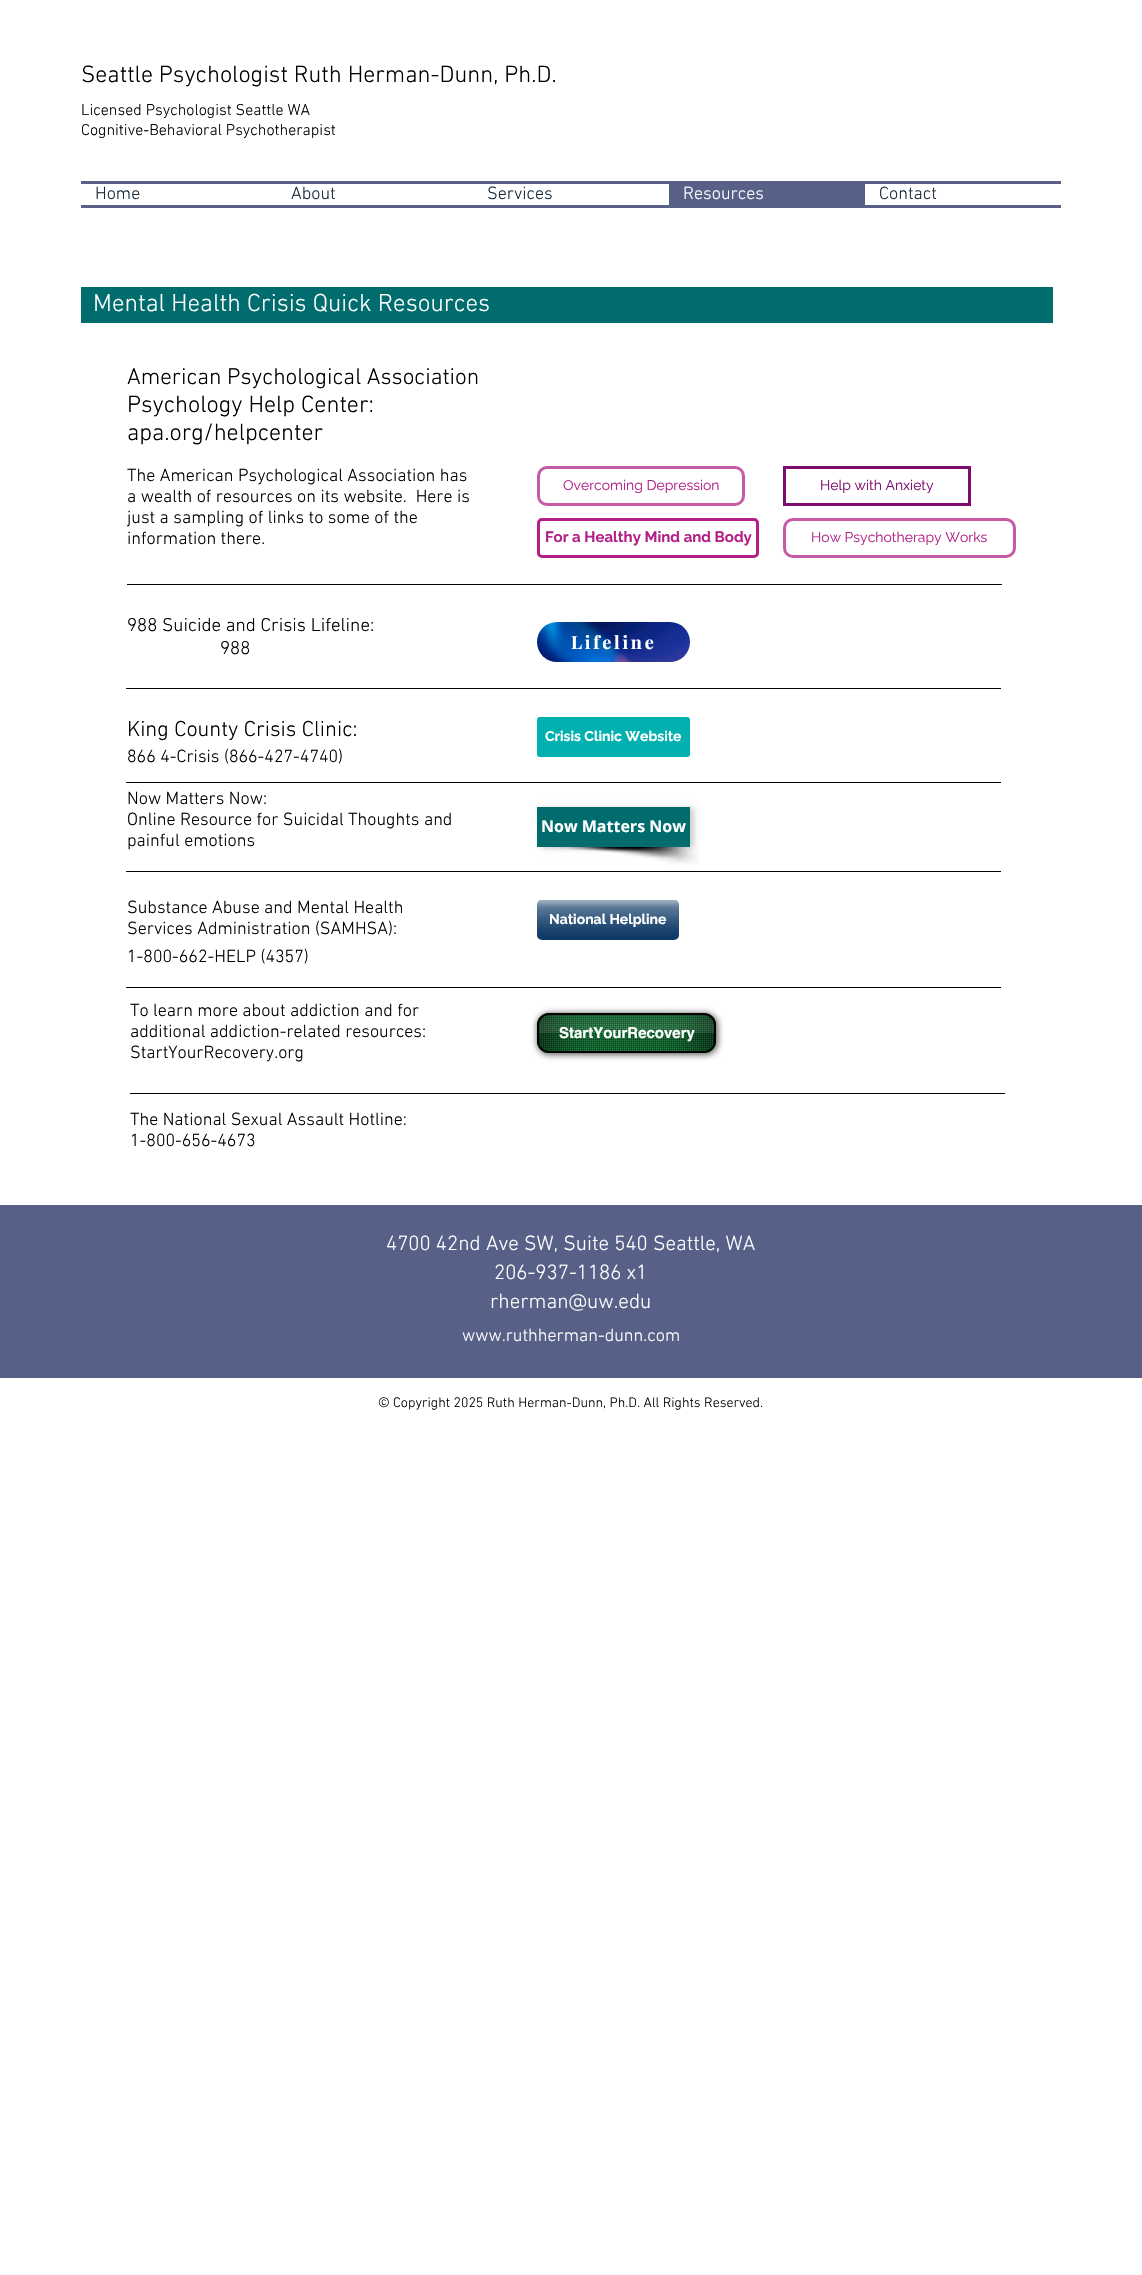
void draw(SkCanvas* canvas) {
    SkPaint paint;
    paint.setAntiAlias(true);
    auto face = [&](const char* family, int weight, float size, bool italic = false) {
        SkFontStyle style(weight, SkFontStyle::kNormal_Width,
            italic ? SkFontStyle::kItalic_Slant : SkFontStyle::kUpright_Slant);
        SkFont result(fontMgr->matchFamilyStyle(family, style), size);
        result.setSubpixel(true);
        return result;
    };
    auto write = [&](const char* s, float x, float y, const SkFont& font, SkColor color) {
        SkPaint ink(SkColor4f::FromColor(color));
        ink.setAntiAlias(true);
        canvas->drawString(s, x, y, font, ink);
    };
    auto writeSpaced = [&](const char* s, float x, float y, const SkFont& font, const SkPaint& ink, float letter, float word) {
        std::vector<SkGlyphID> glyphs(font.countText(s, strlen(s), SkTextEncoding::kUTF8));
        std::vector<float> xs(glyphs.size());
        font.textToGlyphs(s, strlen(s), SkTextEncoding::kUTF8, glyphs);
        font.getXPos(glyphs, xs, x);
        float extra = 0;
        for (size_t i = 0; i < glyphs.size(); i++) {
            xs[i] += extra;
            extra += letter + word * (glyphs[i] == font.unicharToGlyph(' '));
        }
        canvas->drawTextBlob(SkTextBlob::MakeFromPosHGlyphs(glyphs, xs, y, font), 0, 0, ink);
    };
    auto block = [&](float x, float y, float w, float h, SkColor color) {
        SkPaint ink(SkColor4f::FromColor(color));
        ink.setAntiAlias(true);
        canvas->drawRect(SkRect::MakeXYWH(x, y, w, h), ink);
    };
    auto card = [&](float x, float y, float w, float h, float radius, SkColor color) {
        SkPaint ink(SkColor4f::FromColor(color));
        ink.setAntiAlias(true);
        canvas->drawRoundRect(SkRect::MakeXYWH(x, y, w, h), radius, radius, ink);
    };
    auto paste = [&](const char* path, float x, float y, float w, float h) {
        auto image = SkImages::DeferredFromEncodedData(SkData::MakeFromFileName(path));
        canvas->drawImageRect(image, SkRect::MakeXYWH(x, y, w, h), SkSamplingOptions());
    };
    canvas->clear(SK_ColorWHITE);
    auto kFont1 = face("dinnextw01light", 300, 24);
    write("Seattle Psychologist Ruth Herman-Dunn, Ph.D.", 81, 82, kFont1, SK_ColorBLACK);
    auto kFont2 = face("dinnextw01light", 300, 16);
    write("Licensed Psychologist Seattle WA", 81, 115, kFont2, SK_ColorBLACK);
    write("Cognitive-Behavioral Psychotherapist", 81, 135, kFont2, SK_ColorBLACK);
    block(81, 181, 980, 3, SkColorSetRGB(87, 97, 135));
    block(81, 205, 980, 3, SkColorSetRGB(87, 97, 135));
    auto kFont3 = face("dinnextw01light", 300, 18);
    write("Home", 95, 199, kFont3, SkColorSetRGB(22, 42, 59));
    write("About", 291, 199, kFont3, SkColorSetRGB(22, 42, 59));
    write("Services", 487, 199, kFont3, SkColorSetRGB(22, 42, 59));
    block(669, 184, 196, 21, SkColorSetRGB(87, 97, 135));
    write("Resources", 683, 199, kFont3, SK_ColorWHITE);
    write("Contact", 879, 199, kFont3, SkColorSetRGB(22, 42, 59));
    block(81, 287, 972, 36, SkColorSetRGB(0, 108, 109));
    auto kFont4 = face("dinnextw01light", 300, 25);
    write("Mental Health Crisis Quick Resources", 93, 311, kFont4, SK_ColorWHITE);
    auto kFont5 = face("dinnextw01light", 300, 23);
    write("American Psychological Association", 127, 384, kFont5, SK_ColorBLACK);
    write("Psychology Help Center:", 127, 412, kFont1, SK_ColorBLACK);
    write("apa.org/helpcenter", 127, 440, kFont1, SK_ColorBLACK);
    write("The American Psychological Association has", 127, 481, kFont3, SK_ColorBLACK);
    write("a wealth of resources on its website.  Here is", 127, 502, kFont3, SK_ColorBLACK);
    write("just a sampling of links to some of the", 127, 523, kFont3, SK_ColorBLACK);
    write("information there.", 127, 544, kFont3, SK_ColorBLACK);
    paint.setStyle(SkPaint::kStroke_Style);
    paint.setStrokeWidth(3);
    paint.setColor(SkColorSetRGB(198, 90, 165));
    canvas->drawRoundRect(SkRect::MakeXYWH(538.5f, 467.5f, 205, 37), 8.5f, 8.5f, paint);
    auto kFont6 = face("Raleway", 400, 14);
    write("Overcoming Depression", 563, 490, kFont6, SkColorSetRGB(178, 32, 135));
    paint.setColor(SkColorSetRGB(126, 12, 110));
    canvas->drawRect(SkRect::MakeXYWH(784.5f, 467.5f, 185, 37), paint);
    write("Help with Anxiety", 820, 490, kFont6, SkColorSetRGB(126, 12, 110));
    paint.setColor(SkColorSetRGB(178, 32, 135));
    canvas->drawRoundRect(SkRect::MakeXYWH(538.5f, 519.5f, 219, 37), 3.5f, 3.5f, paint);
    auto kFont7 = face("Raleway", 700, 15);
    write("For a Healthy Mind and Body", 545, 542, kFont7, SkColorSetRGB(178, 32, 135));
    paint.setColor(SkColorSetRGB(198, 90, 165));
    canvas->drawRoundRect(SkRect::MakeXYWH(784.5f, 519.5f, 230, 37), 8.5f, 8.5f, paint);
    write("How Psychotherapy Works", 811, 542, kFont6, SkColorSetRGB(178, 32, 135));
    block(127, 584, 875, 1, SK_ColorBLACK);
    auto kFont8 = face("dinnextw01light", 300, 19);
    write("988 Suicide and Crisis Lifeline:", 127, 631, kFont8, SK_ColorBLACK);
    write("988", 220, 654, kFont8, SK_ColorBLACK);
    paste("pic1.png", 537, 622, 153, 40);
    auto kFont9 = face("Playfair Display", 700, 18);
    paint.setStyle(SkPaint::kFill_Style);
    paint.setColor(SK_ColorWHITE);
    writeSpaced("Lifeline", 571, 649, kFont9, paint, 2.75f, 0);
    block(126, 688, 875, 1, SK_ColorBLACK);
    auto kFont10 = face("dinnextw01light", 300, 22);
    write("King County Crisis Clinic:", 127, 736, kFont10, SK_ColorBLACK);
    card(537, 717, 153, 40, 3, SkColorSetRGB(1, 177, 175));
    auto kFont11 = face("Raleway", 700, 14);
    write("Crisis Clinic Website", 545, 741, kFont11, SK_ColorWHITE);
    write("866 4-Crisis (866-427-4740)", 127, 762, kFont3, SK_ColorBLACK);
    block(126, 782, 875, 1, SK_ColorBLACK);
    write("Now Matters Now:", 127, 804, kFont3, SK_ColorBLACK);
    write("Online Resource for Suicidal Thoughts and", 127, 825, kFont3, SK_ColorBLACK);
    write("painful emotions", 127, 846, kFont3, SK_ColorBLACK);
    paste("pic2.png", 545, 847, 154, 18);
    paint.setColor(SkColorSetARGB(51, 0, 0, 0));
    paint.setMaskFilter(SkMaskFilter::MakeBlur(kNormal_SkBlurStyle, 3));
    canvas->drawRect(SkRect::MakeXYWH(541, 808, 153, 40), paint);
    paint.setMaskFilter(nullptr);
    block(537, 807, 153, 40, SkColorSetRGB(0, 108, 109));
    auto kFont12 = face("Open Sans", 700, 16);
    write("Now Matters Now", 541, 832, kFont12, SK_ColorWHITE);
    block(126, 871, 875, 1, SK_ColorBLACK);
    write("Substance Abuse and Mental Health", 127, 913, kFont3, SK_ColorBLACK);
    write("Services Administration (SAMHSA):", 127, 934, kFont3, SK_ColorBLACK);
    card(537, 900, 142, 40, 5, SkColorSetRGB(0, 46, 93));
    paste("pic3.png", 537, 900, 142, 40);
    write("National Helpline", 549, 924, kFont11, SK_ColorWHITE);
    write("1-800-662-HELP (4357)", 127, 962, kFont3, SK_ColorBLACK);
    block(126, 987, 875, 1, SK_ColorBLACK);
    write("To learn more about addiction and for", 130, 1016, kFont3, SK_ColorBLACK);
    write("additional addiction-related resources:", 130, 1037, kFont3, SK_ColorBLACK);
    write("StartYourRecovery.org", 130, 1058, kFont3, SK_ColorBLACK);
    paint.setColor(SkColorSetARGB(153, 0, 0, 0));
    paint.setMaskFilter(SkMaskFilter::MakeBlur(kNormal_SkBlurStyle, 3));
    canvas->drawRoundRect(SkRect::MakeXYWH(537, 1013, 181, 42), 13, 13, paint);
    paint.setMaskFilter(nullptr);
    card(537, 1013, 179, 40, 12, SkColorSetRGB(28, 138, 67));
    paste("pic4.png", 537, 1013, 179, 40);
    paint.setStyle(SkPaint::kStroke_Style);
    paint.setStrokeWidth(2);
    paint.setColor(SK_ColorBLACK);
    canvas->drawRoundRect(SkRect::MakeXYWH(538, 1014, 177, 38), 11, 11, paint);
    paste("pic5.png", 539, 1015, 46, 36);
    paste("pic7.png", 668, 1015, 46, 36);
    auto kFont13 = face("helvetica", 700, 15);
    write("StartYourRecovery", 559, 1038, kFont13, SK_ColorWHITE);
    paste("pic6.png", 539, 1015, 175, 18);
    block(130, 1093, 875, 1, SK_ColorBLACK);
    write("The National Sexual Assault Hotline:", 130, 1125, kFont3, SK_ColorBLACK);
    write("1-800-656-4673", 130, 1146, kFont3, SK_ColorBLACK);
    block(0, 1205, 1142, 173, SkColorSetRGB(87, 97, 135));
    auto kFont14 = face("dinnextw01light", 300, 21);
    write("4700 42nd Ave SW, Suite 540 Seattle, WA", 386, 1250, kFont14, SK_ColorWHITE);
    write("206-937-1186 x1", 494, 1279, kFont14, SK_ColorWHITE);
    write("rherman@uw.edu", 490, 1308, kFont14, SK_ColorWHITE);
    write("www.ruthherman-dunn.com", 462, 1341, kFont3, SK_ColorWHITE);
    auto kFont15 = face("dinnextw01light", 300, 14);
    write("© Copyright 2025 Ruth Herman-Dunn, Ph.D. All Rights Reserved.", 378, 1407, kFont15, SK_ColorBLACK);
}
